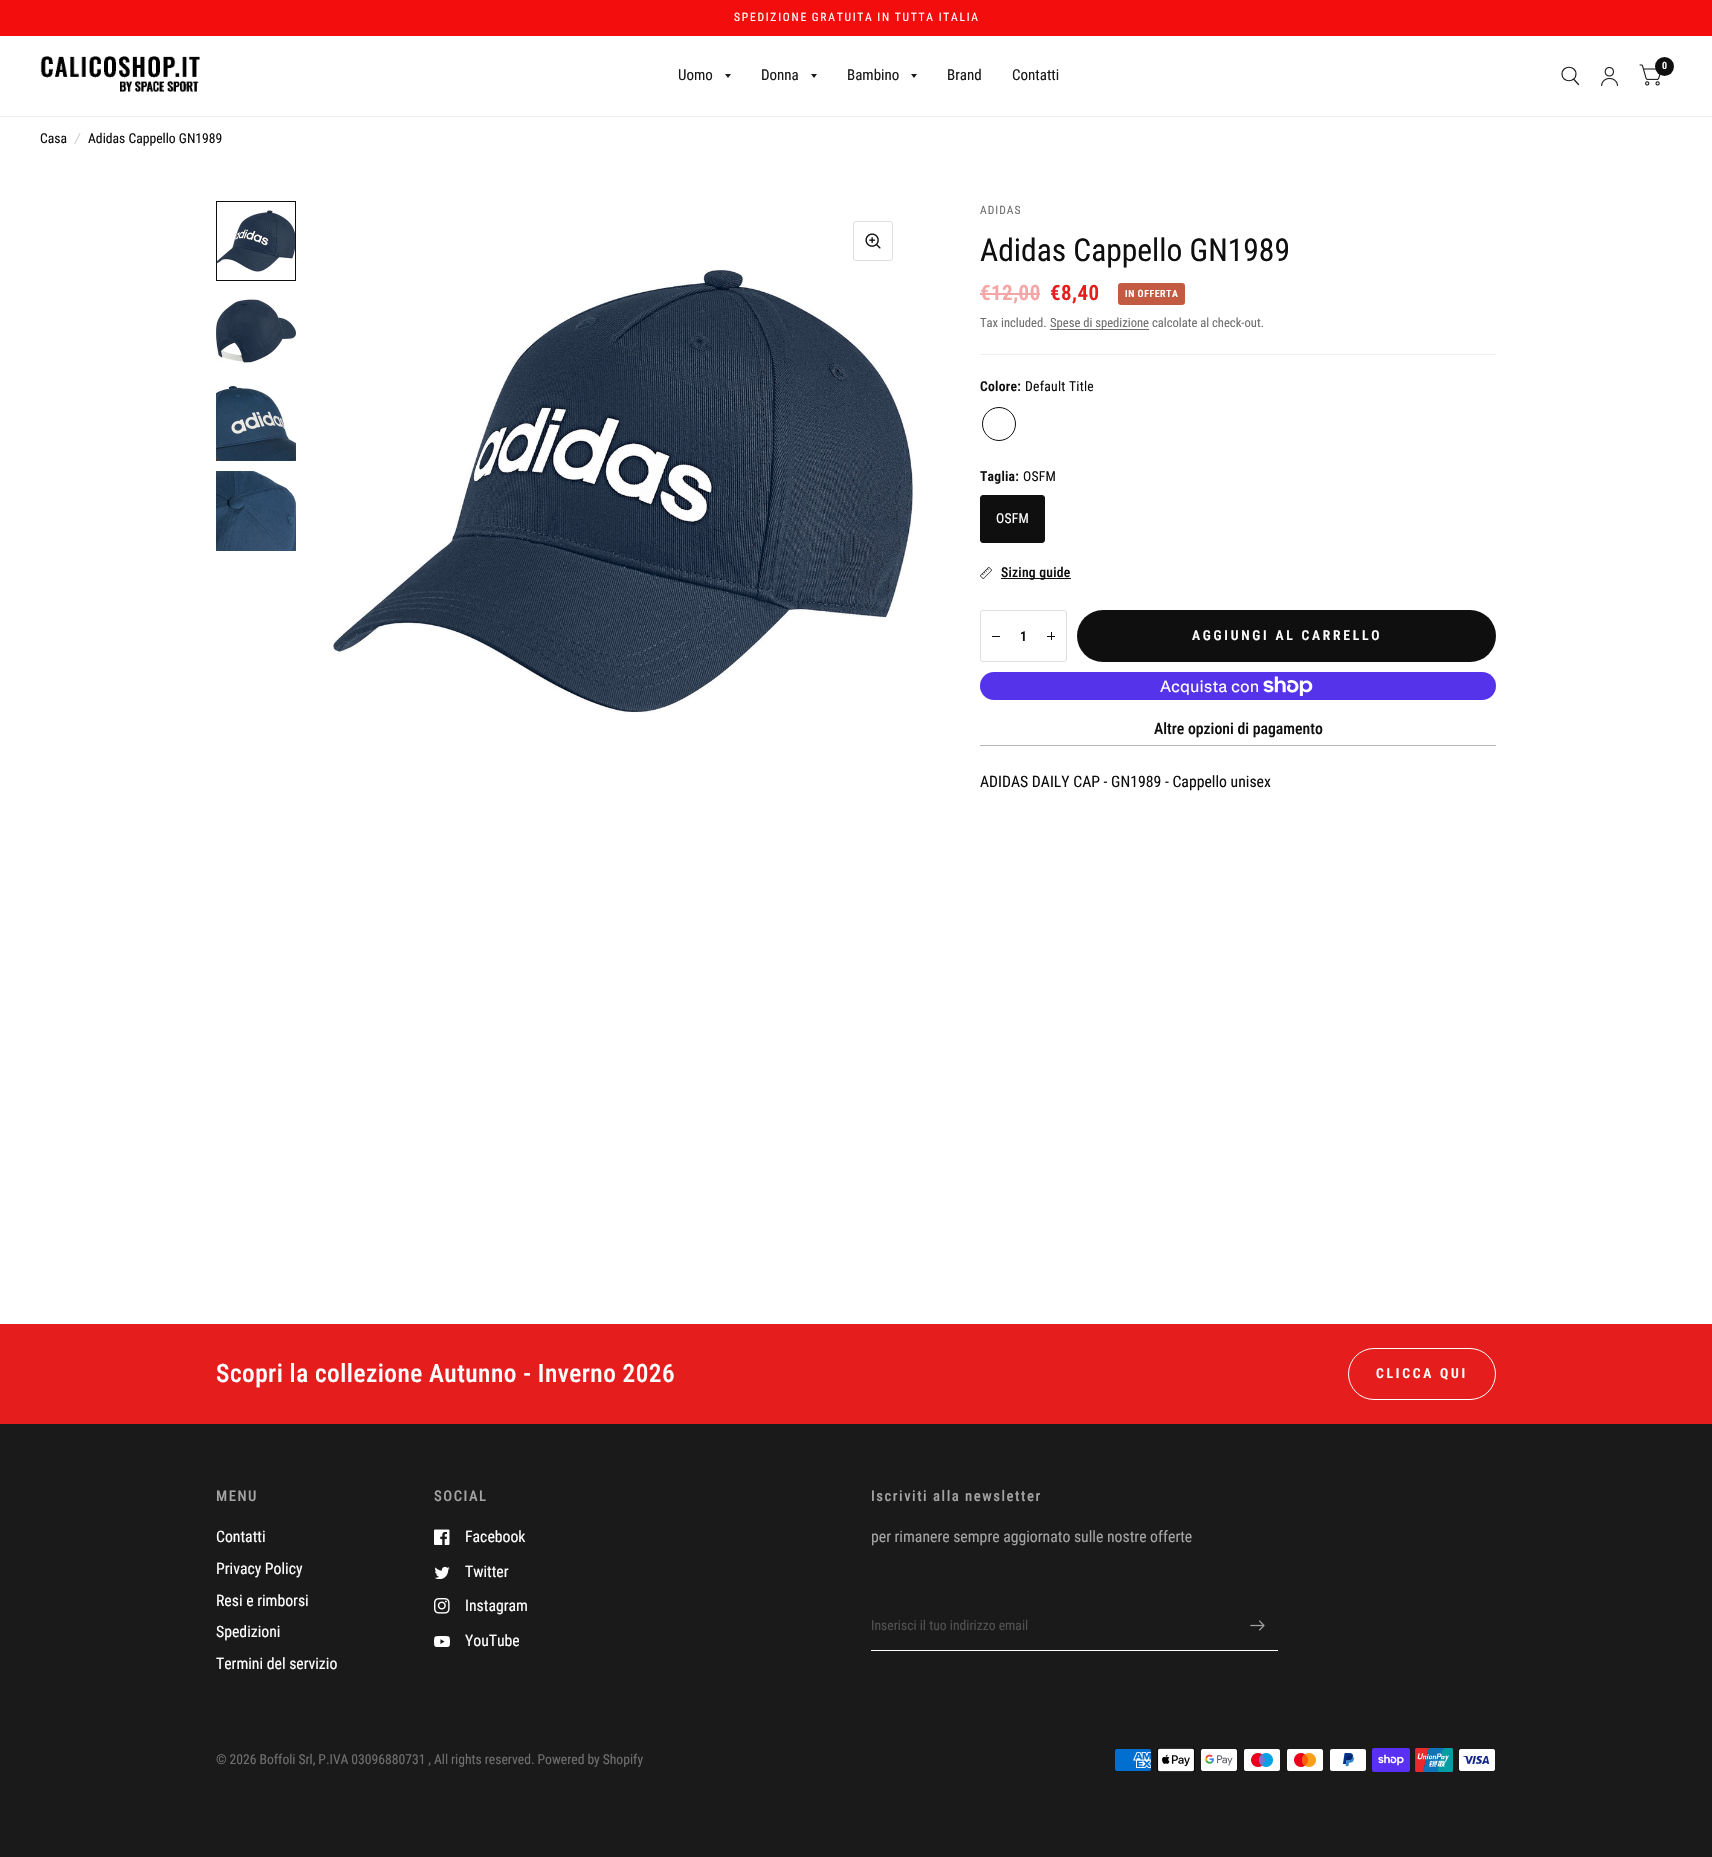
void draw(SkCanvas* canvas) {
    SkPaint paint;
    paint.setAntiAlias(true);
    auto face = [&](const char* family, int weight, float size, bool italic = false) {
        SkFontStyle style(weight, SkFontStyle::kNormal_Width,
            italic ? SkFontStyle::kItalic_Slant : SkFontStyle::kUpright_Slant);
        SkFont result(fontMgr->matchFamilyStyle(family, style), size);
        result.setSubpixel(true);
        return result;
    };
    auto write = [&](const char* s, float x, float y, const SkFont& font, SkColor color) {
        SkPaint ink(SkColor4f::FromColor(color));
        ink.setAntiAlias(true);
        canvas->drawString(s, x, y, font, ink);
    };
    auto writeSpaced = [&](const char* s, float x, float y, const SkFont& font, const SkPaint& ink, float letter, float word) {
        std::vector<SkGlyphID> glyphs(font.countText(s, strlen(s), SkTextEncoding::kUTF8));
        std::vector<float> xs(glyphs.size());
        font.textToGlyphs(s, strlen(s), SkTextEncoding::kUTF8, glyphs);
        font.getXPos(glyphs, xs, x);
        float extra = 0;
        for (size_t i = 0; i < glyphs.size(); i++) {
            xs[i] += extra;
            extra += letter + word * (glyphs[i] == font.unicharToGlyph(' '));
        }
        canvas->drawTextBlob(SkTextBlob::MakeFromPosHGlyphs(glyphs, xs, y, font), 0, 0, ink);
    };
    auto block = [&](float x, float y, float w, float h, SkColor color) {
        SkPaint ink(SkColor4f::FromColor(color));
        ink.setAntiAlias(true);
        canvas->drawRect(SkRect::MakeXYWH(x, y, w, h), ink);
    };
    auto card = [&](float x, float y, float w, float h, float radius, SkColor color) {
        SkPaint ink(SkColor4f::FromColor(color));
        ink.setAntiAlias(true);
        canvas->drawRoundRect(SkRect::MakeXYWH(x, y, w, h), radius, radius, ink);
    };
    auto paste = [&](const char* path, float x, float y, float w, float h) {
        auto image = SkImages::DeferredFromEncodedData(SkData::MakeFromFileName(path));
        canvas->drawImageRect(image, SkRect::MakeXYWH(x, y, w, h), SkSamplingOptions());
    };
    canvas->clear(SK_ColorWHITE);
    block(0, 0, 1712, 36, SkColorSetRGB(244, 13, 13));
    auto kFont1 = face("Roboto Condensed", 400, 11.55f);
    paint.setColor(SK_ColorWHITE);
    writeSpaced("SPEDIZIONE GRATUITA IN TUTTA ITALIA", 734, 21, kFont1, paint, 1.75f, -0.5f);
    block(0, 116, 1712, 1, SkColorSetRGB(238, 238, 238));
    paste("pic1.png", 40, 56, 160, 36);
    paint.setStyle(SkPaint::kStroke_Style);
    paint.setStrokeWidth(1.2f);
    paint.setStrokeCap(SkPaint::kRound_Cap);
    paint.setStrokeJoin(SkPaint::kRound_Join);
    paint.setColor(SkColorSetRGB(26, 26, 26));
    canvas->drawPath(SkPathBuilder().moveTo(1574, 79.5f).lineTo(1578.5f, 84.5f).moveTo(1576, 74).cubicTo(1576, 83, 1562, 83, 1562, 74).cubicTo(1562, 65, 1576, 65, 1576, 74).close().detach(), paint);
    paste("pic2.png", 1601, 66, 18, 21);
    paste("pic3.png", 1639, 64, 22, 22);
    paint.setStyle(SkPaint::kFill_Style);
    paint.setColor(SkColorSetRGB(15, 15, 16));
    canvas->drawCircle(1664.5f, 66.5f, 9.5f, paint);
    auto kFont2 = face("Roboto Condensed", 600, 10);
    write("0", 1662, 69, kFont2, SK_ColorWHITE);
    auto kFont3 = face("Roboto Condensed", 400, 15);
    write("Uomo", 678, 80, kFont3, SkColorSetRGB(26, 26, 26));
    paint.setColor(SkColorSetRGB(26, 26, 26));
    canvas->drawPath(SkPathBuilder().moveTo(725, 74).lineTo(731, 74).lineTo(728, 78).close().detach(), paint);
    write("Donna", 761, 80, kFont3, SkColorSetRGB(26, 26, 26));
    canvas->drawPath(SkPathBuilder().moveTo(811, 74).lineTo(817, 74).lineTo(814, 78).close().detach(), paint);
    write("Bambino", 847, 80, kFont3, SkColorSetRGB(26, 26, 26));
    canvas->drawPath(SkPathBuilder().moveTo(911, 74).lineTo(917, 74).lineTo(914, 78).close().detach(), paint);
    write("Brand", 947, 80, kFont3, SkColorSetRGB(26, 26, 26));
    write("Contatti", 1012, 80, kFont3, SkColorSetRGB(26, 26, 26));
    auto kFont4 = face("Roboto Condensed", 400, 13.65f);
    write("Casa", 40, 143, kFont4, SkColorSetRGB(15, 15, 16));
    auto kFont5 = face("Roboto Condensed", 400, 13.65f, true);
    write("/", 75, 143, kFont5, SkColorSetRGB(207, 207, 207));
    write("Adidas Cappello GN1989", 88, 143, kFont4, SkColorSetRGB(15, 15, 16));
    paste("pic4.png", 217, 210, 78, 63);
    paint.setStyle(SkPaint::kStroke_Style);
    paint.setStrokeWidth(1);
    paint.setStrokeCap(SkPaint::kButt_Cap);
    paint.setStrokeJoin(SkPaint::kMiter_Join);
    paint.setColor(SkColorSetRGB(15, 15, 16));
    canvas->drawRect(SkRect::MakeXYWH(216.5f, 201.5f, 79, 79), paint);
    paste("pic5.png", 216, 299, 80, 64);
    paste("pic6.png", 216, 385, 80, 76);
    paste("pic7.png", 216, 471, 80, 80);
    paint.setColor(SkColorSetRGB(222, 222, 222));
    canvas->drawRoundRect(SkRect::MakeXYWH(853.5f, 221.5f, 39, 39), 2.5f, 2.5f, paint);
    paste("pic8.png", 865, 233, 16, 16);
    paste("pic9.png", 333, 269, 580, 444);
    paint.setStyle(SkPaint::kFill_Style);
    paint.setColor(SkColorSetRGB(111, 111, 112));
    writeSpaced("ADIDAS", 980, 214, kFont1, paint, 1, 0);
    block(980, 354, 516, 1, SkColorSetRGB(238, 238, 238));
    auto kFont6 = face("Roboto Condensed", 400, 31.5f);
    write("Adidas Cappello GN1989", 980, 261, kFont6, SkColorSetRGB(15, 15, 16));
    auto kFont7 = face("Roboto Condensed", 600, 21);
    paint.setColor(SkColorSetRGB(245, 165, 165));
    writeSpaced("€12,00", 980, 300, kFont7, paint, 0.5f, 0);
    block(980, 293, 60, 2, SkColorSetRGB(245, 165, 165));
    paint.setColor(SkColorSetRGB(229, 29, 29));
    writeSpaced("€8,40", 1050, 300, kFont7, paint, 0.5f, 0);
    card(1118, 283, 67, 22, 3, SkColorSetRGB(194, 91, 65));
    paint.setColor(SK_ColorWHITE);
    writeSpaced("IN OFFERTA", 1125, 297, kFont2, paint, 0.5f, 0);
    auto kFont8 = face("Roboto Condensed", 400, 12.6f);
    write("Tax included.", 980, 327, kFont8, SkColorSetRGB(111, 111, 112));
    block(1050, 329, 99, 1, SkColorSetRGB(111, 111, 112));
    write("Spese di spedizione calcolate al check-out.", 1050, 327, kFont8, SkColorSetRGB(111, 111, 112));
    auto kFont9 = face("Roboto Condensed", 600, 13.65f);
    paint.setColor(SkColorSetRGB(15, 15, 16));
    writeSpaced("Colore:", 980, 391, kFont9, paint, 0.25f, 0);
    writeSpaced("Default Title", 1025, 391, kFont4, paint, 0.25f, 0);
    paint.setStyle(SkPaint::kStroke_Style);
    canvas->drawCircle(999, 424, 16.5f, paint);
    paint.setStyle(SkPaint::kFill_Style);
    writeSpaced("Taglia:", 980, 481, kFont9, paint, 0.25f, 0);
    writeSpaced("OSFM", 1023, 481, kFont4, paint, 0.25f, 0);
    canvas->drawRoundRect(SkRect::MakeXYWH(980.5f, 495.5f, 64, 47), 2.5f, 2.5f, paint);
    paint.setStyle(SkPaint::kStroke_Style);
    canvas->drawRoundRect(SkRect::MakeXYWH(980.5f, 495.5f, 64, 47), 2.5f, 2.5f, paint);
    paint.setStyle(SkPaint::kFill_Style);
    paint.setColor(SK_ColorWHITE);
    writeSpaced("OSFM", 996, 523, kFont4, paint, 0.25f, 0);
    paste("pic10.png", 980, 567, 12, 12);
    block(1001, 578, 70, 1, SkColorSetRGB(15, 15, 16));
    auto kFont10 = face("Roboto Condensed", 500, 13.65f);
    paint.setColor(SkColorSetRGB(15, 15, 16));
    writeSpaced("Sizing guide", 1001, 577, kFont10, paint, 0.25f, 0);
    paint.setStyle(SkPaint::kStroke_Style);
    paint.setColor(SkColorSetRGB(222, 222, 222));
    canvas->drawRoundRect(SkRect::MakeXYWH(980.5f, 610.5f, 86, 51), 2.5f, 2.5f, paint);
    block(992, 636, 8, 1, SkColorSetRGB(15, 15, 16));
    write("1", 1020, 641, kFont9, SkColorSetRGB(15, 15, 16));
    block(1051, 632, 1, 8, SkColorSetRGB(15, 15, 16));
    block(1047, 636, 8, 1, SkColorSetRGB(15, 15, 16));
    card(1077, 610, 419, 52, 26, SkColorSetRGB(15, 15, 16));
    paint.setStyle(SkPaint::kFill_Style);
    paint.setColor(SK_ColorWHITE);
    writeSpaced("AGGIUNGI AL CARRELLO", 1192, 640, kFont9, paint, 2.75f, 0);
    card(980, 672, 516, 28, 14, SkColorSetRGB(84, 51, 235));
    auto kFont11 = face("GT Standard", 400, 16);
    write("Acquista con", 1160, 692, kFont11, SK_ColorWHITE);
    paste("pic11.png", 1263, 676, 50, 20);
    auto kFont12 = face("Roboto Condensed", 500, 15.75f);
    write("Altre opzioni di pagamento", 1154, 734, kFont12, SkColorSetRGB(15, 15, 16));
    block(980, 745, 516, 1, SkColorSetRGB(183, 183, 183));
    auto kFont13 = face("Roboto Condensed", 400, 15.75f);
    write("ADIDAS DAILY CAP - GN1989 - Cappello unisex", 980, 787, kFont13, SkColorSetRGB(15, 15, 16));
    block(0, 1324, 1712, 100, SkColorSetRGB(229, 29, 29));
    auto kFont14 = face("Roboto Condensed", 500, 25.25f);
    writeSpaced("Scopri la collezione Autunno - Inverno 2026", 216, 1382, kFont14, paint, 0.5f, 0);
    paint.setStyle(SkPaint::kStroke_Style);
    canvas->drawRoundRect(SkRect::MakeXYWH(1348.5f, 1348.5f, 147, 51), 25.5f, 25.5f, paint);
    paint.setStyle(SkPaint::kFill_Style);
    writeSpaced("CLICCA QUI", 1376, 1378, kFont9, paint, 2.75f, 0);
    block(0, 1424, 1712, 433, SkColorSetRGB(26, 26, 26));
    auto kFont15 = face("Roboto Condensed", 500, 14.75f);
    paint.setColor(SkColorSetRGB(163, 163, 163));
    writeSpaced("MENU", 216, 1501, kFont15, paint, 1.5f, 0);
    write("Contatti", 216, 1542, kFont13, SK_ColorWHITE);
    write("Privacy Policy", 216, 1574, kFont13, SK_ColorWHITE);
    write("Resi e rimborsi", 216, 1606, kFont13, SK_ColorWHITE);
    write("Spedizioni", 216, 1637, kFont13, SK_ColorWHITE);
    write("Termini del servizio", 216, 1669, kFont13, SK_ColorWHITE);
    writeSpaced("SOCIAL", 434, 1501, kFont15, paint, 1.5f, 0);
    paste("pic12.png", 434, 1529, 16, 16);
    write("Facebook", 465, 1542, kFont13, SK_ColorWHITE);
    paste("pic13.png", 434, 1566, 16, 13);
    write("Twitter", 465, 1577, kFont13, SK_ColorWHITE);
    paste("pic14.png", 434, 1598, 16, 16);
    write("Instagram", 465, 1611, kFont13, SK_ColorWHITE);
    paste("pic15.png", 434, 1636, 16, 11);
    write("YouTube", 465, 1646, kFont13, SK_ColorWHITE);
    writeSpaced("Iscriviti alla newsletter", 871, 1501, kFont15, paint, 1.5f, 0);
    write("per rimanere sempre aggiornato sulle nostre offerte", 871, 1542, kFont13, SkColorSetRGB(163, 163, 163));
    block(871, 1650, 407, 1, SK_ColorWHITE);
    write("Inserisci il tuo indirizzo email", 871, 1630, kFont4, SkColorSetRGB(81, 81, 81));
    paste("pic16.png", 1250, 1620, 15, 11);
    paint.setColor(SkColorSetRGB(111, 111, 112));
    writeSpaced("© 2026 Boffoli Srl, P.IVA 03096880731 , All rights reserved. Powered by Shopify", 216, 1764, kFont4, paint, 0, -0.25f);
    paste("pic17.png", 1115, 1749, 36, 22);
    paste("pic18.png", 1157, 1748, 38, 24);
    paste("pic19.png", 1201, 1749, 36, 22);
    paste("pic20.png", 1244, 1749, 36, 22);
    paste("pic21.png", 1287, 1749, 36, 22);
    paste("pic22.png", 1330, 1749, 36, 22);
    paste("pic23.png", 1372, 1748, 38, 24);
    paste("pic24.png", 1415, 1748, 38, 24);
    paste("pic25.png", 1459, 1749, 36, 22);
}
